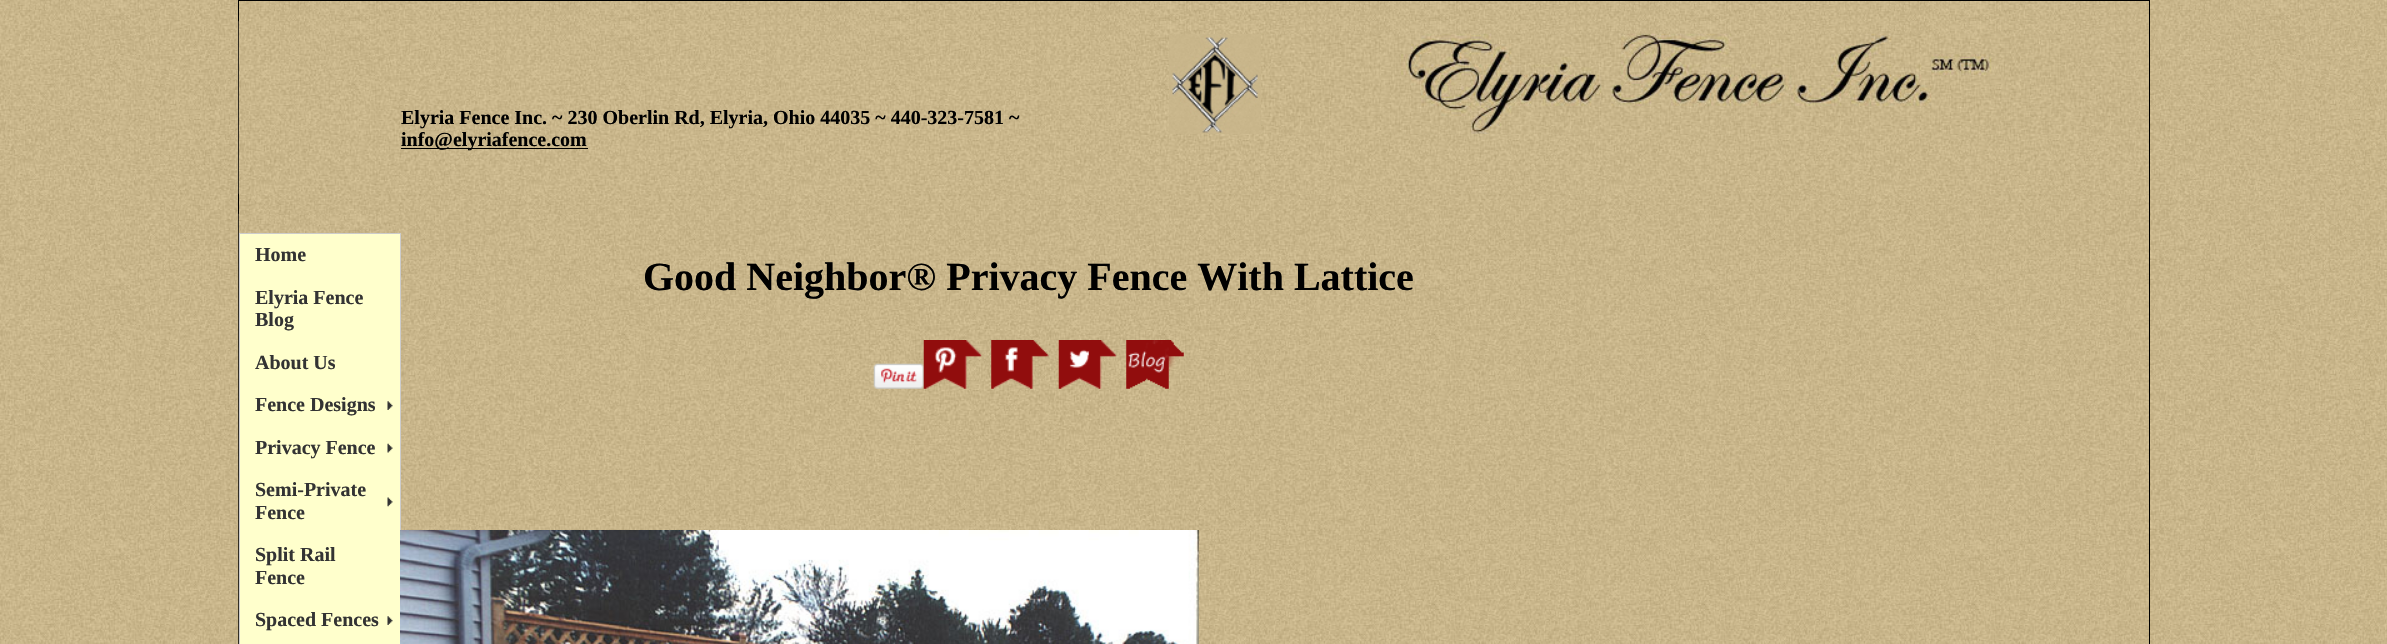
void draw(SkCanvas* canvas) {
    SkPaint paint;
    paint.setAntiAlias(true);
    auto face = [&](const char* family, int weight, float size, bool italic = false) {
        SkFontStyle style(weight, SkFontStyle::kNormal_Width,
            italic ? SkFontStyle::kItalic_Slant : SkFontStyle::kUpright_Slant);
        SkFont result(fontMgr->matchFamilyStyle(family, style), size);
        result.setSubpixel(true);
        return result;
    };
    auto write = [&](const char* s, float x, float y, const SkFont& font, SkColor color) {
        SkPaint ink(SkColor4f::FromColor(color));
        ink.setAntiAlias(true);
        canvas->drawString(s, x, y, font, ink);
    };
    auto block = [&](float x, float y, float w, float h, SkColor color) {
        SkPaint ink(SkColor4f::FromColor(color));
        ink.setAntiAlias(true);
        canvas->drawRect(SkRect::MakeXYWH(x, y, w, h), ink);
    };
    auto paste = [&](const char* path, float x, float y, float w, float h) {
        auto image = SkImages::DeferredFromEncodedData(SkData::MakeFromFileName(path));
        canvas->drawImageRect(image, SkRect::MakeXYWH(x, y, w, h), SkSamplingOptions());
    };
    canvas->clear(SK_ColorWHITE);
    paste("pic1.png", 0, 0, 2387, 644);
    paste("pic2.png", 237, 0, 1912, 644);
    paint.setStyle(SkPaint::kStroke_Style);
    paint.setStrokeWidth(1);
    paint.setColor(SK_ColorBLACK);
    canvas->drawRect(SkRect::MakeXYWH(238.5f, 0.5f, 1911, 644), paint);
    paste("pic3.png", 238, 21, 1911, 173);
    auto kFont1 = face("Liberation Serif", 700, 20);
    write("Elyria Fence Inc. ~ 230 Oberlin Rd, Elyria, Ohio 44035 ~ 440-323-7581 ~", 401, 124, kFont1, SK_ColorBLACK);
    block(401, 148, 187, 1, SK_ColorBLACK);
    write("info@elyriafence.com", 401, 146, kFont1, SK_ColorBLACK);
    paste("pic4.png", 1169, 34, 92, 100);
    paste("pic5.png", 1261, 33, 876, 101);
    paste("pic6.png", 238, 213, 161, 431);
    paint.setColor(SkColorSetRGB(204, 204, 204));
    canvas->drawRect(SkRect::MakeXYWH(239.5f, 233.5f, 161, 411), paint);
    block(240, 234, 160, 410, SkColorSetRGB(255, 255, 204));
    write("Home", 255, 261, kFont1, SkColorSetRGB(51, 51, 51));
    write("Elyria Fence", 255, 304, kFont1, SkColorSetRGB(51, 51, 51));
    write("Blog", 255, 326, kFont1, SkColorSetRGB(51, 51, 51));
    write("About Us", 255, 369, kFont1, SkColorSetRGB(51, 51, 51));
    paste("pic7.png", 387, 401, 6, 9);
    write("Fence Designs", 255, 411, kFont1, SkColorSetRGB(51, 51, 51));
    paste("pic8.png", 387, 443, 6, 10);
    write("Privacy Fence", 255, 454, kFont1, SkColorSetRGB(51, 51, 51));
    paste("pic9.png", 387, 497, 6, 10);
    write("Semi-Private", 255, 496, kFont1, SkColorSetRGB(51, 51, 51));
    write("Fence", 255, 519, kFont1, SkColorSetRGB(51, 51, 51));
    write("Split Rail", 255, 561, kFont1, SkColorSetRGB(51, 51, 51));
    write("Fence", 255, 584, kFont1, SkColorSetRGB(51, 51, 51));
    paste("pic7.png", 387, 616, 6, 9);
    write("Spaced Fences", 255, 626, kFont1, SkColorSetRGB(51, 51, 51));
    auto kFont2 = face("Liberation Serif", 700, 40);
    write("Good Neighbor® Privacy Fence With Lattice", 643, 290, kFont2, SK_ColorBLACK);
    paste("pic10.png", 873, 363, 51, 26);
    paste("pic11.png", 923, 340, 59, 49);
    paste("pic12.png", 991, 340, 58, 49);
    paste("pic13.png", 1058, 340, 59, 49);
    paste("pic14.png", 1126, 340, 58, 49);
    paste("pic15.png", 400, 530, 799, 114);
}
